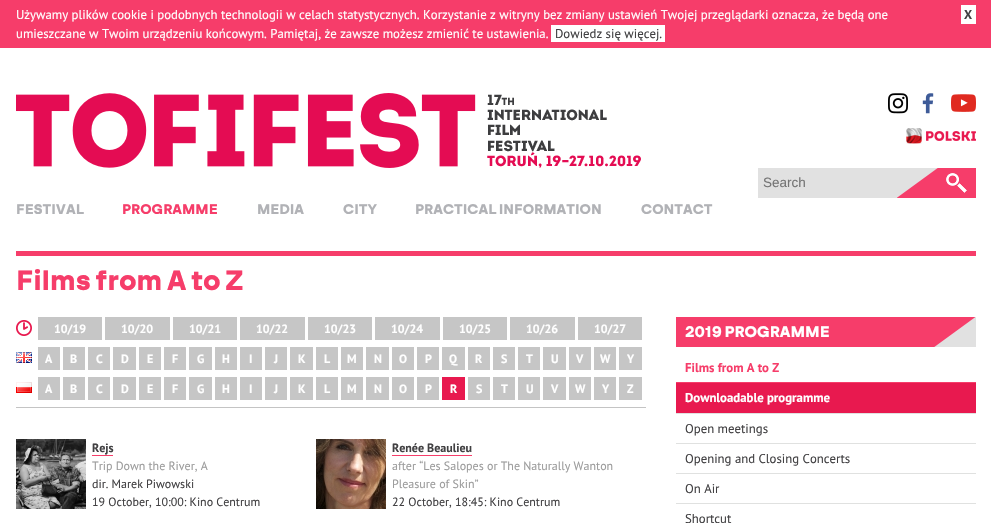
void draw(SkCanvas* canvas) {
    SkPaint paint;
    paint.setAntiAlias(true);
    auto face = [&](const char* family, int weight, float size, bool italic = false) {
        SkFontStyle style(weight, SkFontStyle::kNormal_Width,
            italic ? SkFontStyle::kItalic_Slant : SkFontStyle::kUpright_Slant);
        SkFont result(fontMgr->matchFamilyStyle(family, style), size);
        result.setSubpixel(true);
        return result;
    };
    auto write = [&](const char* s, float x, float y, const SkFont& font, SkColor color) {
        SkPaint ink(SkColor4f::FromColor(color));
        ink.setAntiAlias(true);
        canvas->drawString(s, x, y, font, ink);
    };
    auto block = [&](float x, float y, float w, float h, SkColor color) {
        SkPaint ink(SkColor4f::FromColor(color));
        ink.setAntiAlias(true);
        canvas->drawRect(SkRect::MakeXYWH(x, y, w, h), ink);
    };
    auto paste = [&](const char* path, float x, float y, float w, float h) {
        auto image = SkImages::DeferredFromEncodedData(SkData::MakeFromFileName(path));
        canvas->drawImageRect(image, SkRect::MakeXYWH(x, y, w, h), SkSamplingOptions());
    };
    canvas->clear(SK_ColorWHITE);
    block(0, 0, 991, 48, SkColorSetRGB(246, 61, 106));
    auto kFont1 = face("PT Sans", 400, 12.8f);
    write("Używamy plików cookie i podobnych technologii w celach statystycznych. Korzystanie z witryny bez zmiany ustawień Twojej przeglądarki oznacza, że będą one", 16, 19, kFont1, SK_ColorWHITE);
    block(961, 5, 15, 19, SK_ColorWHITE);
    auto kFont2 = face("PT Sans", 700, 12.8f);
    write("X", 964, 19, kFont2, SkColorSetRGB(65, 64, 66));
    write("umieszczane w Twoim urządzeniu końcowym. Pamiętaj, że zawsze możesz zmienić te ustawienia.", 16, 38, kFont1, SK_ColorWHITE);
    block(551, 25, 114, 17, SK_ColorWHITE);
    write("Dowiedz się więcej.", 555, 38, kFont1, SkColorSetRGB(65, 64, 66));
    paste("pic1.png", 16, 93, 625, 75);
    paste("pic2.png", 888, 93, 20, 21);
    paste("pic3.png", 922, 93, 12, 21);
    paste("pic4.png", 951, 94, 25, 18);
    paste("pic5.png", 906, 128, 70, 16);
    block(758, 168, 180, 30, SkColorSetRGB(225, 225, 225));
    auto kFont3 = face("Liberation Sans", 400, 13.5f);
    write("Search", 763, 187, kFont3, SkColorSetRGB(117, 117, 117));
    paste("pic6.png", 897, 168, 79, 30);
    auto kFont4 = face("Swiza", 700, 14);
    write("FESTIVAL", 16, 214, kFont4, SkColorSetRGB(177, 178, 182));
    write("PROGRAMME", 122, 214, kFont4, SkColorSetRGB(246, 61, 106));
    write("MEDIA", 257, 214, kFont4, SkColorSetRGB(177, 178, 182));
    write("CITY", 343, 214, kFont4, SkColorSetRGB(177, 178, 182));
    write("PRACTICAL INFORMATION", 415, 214, kFont4, SkColorSetRGB(177, 178, 182));
    write("CONTACT", 641, 214, kFont4, SkColorSetRGB(177, 178, 182));
    block(16, 251, 960, 5, SkColorSetRGB(246, 61, 106));
    auto kFont5 = face("Swiza", 700, 28);
    write("Films from A to Z", 16, 290, kFont5, SkColorSetRGB(246, 61, 106));
    paste("pic7.png", 16, 320, 16, 16);
    block(38, 317, 64, 23, SkColorSetRGB(198, 198, 198));
    auto kFont6 = face("PT Sans", 700, 12);
    write("10/19", 54, 333, kFont6, SK_ColorWHITE);
    block(105, 317, 65, 23, SkColorSetRGB(198, 198, 198));
    write("10/20", 121, 333, kFont6, SK_ColorWHITE);
    block(173, 317, 64, 23, SkColorSetRGB(198, 198, 198));
    write("10/21", 189, 333, kFont6, SK_ColorWHITE);
    block(240, 317, 65, 23, SkColorSetRGB(198, 198, 198));
    write("10/22", 256, 333, kFont6, SK_ColorWHITE);
    block(308, 317, 64, 23, SkColorSetRGB(198, 198, 198));
    write("10/23", 324, 333, kFont6, SK_ColorWHITE);
    block(375, 317, 65, 23, SkColorSetRGB(198, 198, 198));
    write("10/24", 391, 333, kFont6, SK_ColorWHITE);
    block(443, 317, 64, 23, SkColorSetRGB(198, 198, 198));
    write("10/25", 459, 333, kFont6, SK_ColorWHITE);
    block(510, 317, 65, 23, SkColorSetRGB(198, 198, 198));
    write("10/26", 526, 333, kFont6, SK_ColorWHITE);
    block(578, 317, 64, 23, SkColorSetRGB(198, 198, 198));
    write("10/27", 594, 333, kFont6, SK_ColorWHITE);
    paste("pic8.png", 16, 352, 16, 11);
    block(38, 347, 22, 23, SkColorSetRGB(198, 198, 198));
    write("A", 45, 363, kFont6, SK_ColorWHITE);
    block(63, 347, 22, 23, SkColorSetRGB(198, 198, 198));
    write("B", 70, 363, kFont6, SK_ColorWHITE);
    block(88, 347, 22, 23, SkColorSetRGB(198, 198, 198));
    write("C", 96, 363, kFont6, SK_ColorWHITE);
    block(113, 347, 23, 23, SkColorSetRGB(198, 198, 198));
    write("D", 121, 363, kFont6, SK_ColorWHITE);
    block(139, 347, 22, 23, SkColorSetRGB(198, 198, 198));
    write("E", 147, 363, kFont6, SK_ColorWHITE);
    block(164, 347, 22, 23, SkColorSetRGB(198, 198, 198));
    write("F", 172, 363, kFont6, SK_ColorWHITE);
    block(189, 347, 23, 23, SkColorSetRGB(198, 198, 198));
    write("G", 197, 363, kFont6, SK_ColorWHITE);
    block(215, 347, 22, 23, SkColorSetRGB(198, 198, 198));
    write("H", 222, 363, kFont6, SK_ColorWHITE);
    block(240, 347, 22, 23, SkColorSetRGB(198, 198, 198));
    write("I", 249, 363, kFont6, SK_ColorWHITE);
    block(265, 347, 22, 23, SkColorSetRGB(198, 198, 198));
    write("J", 274, 363, kFont6, SK_ColorWHITE);
    block(290, 347, 23, 23, SkColorSetRGB(198, 198, 198));
    write("K", 298, 363, kFont6, SK_ColorWHITE);
    block(316, 347, 22, 23, SkColorSetRGB(198, 198, 198));
    write("L", 324, 363, kFont6, SK_ColorWHITE);
    block(341, 347, 22, 23, SkColorSetRGB(198, 198, 198));
    write("M", 347, 363, kFont6, SK_ColorWHITE);
    block(366, 347, 23, 23, SkColorSetRGB(198, 198, 198));
    write("N", 374, 363, kFont6, SK_ColorWHITE);
    block(392, 347, 22, 23, SkColorSetRGB(198, 198, 198));
    write("O", 399, 363, kFont6, SK_ColorWHITE);
    block(417, 347, 22, 23, SkColorSetRGB(198, 198, 198));
    write("P", 425, 363, kFont6, SK_ColorWHITE);
    block(442, 347, 23, 23, SkColorSetRGB(198, 198, 198));
    write("Q", 449, 363, kFont6, SK_ColorWHITE);
    block(468, 347, 22, 23, SkColorSetRGB(198, 198, 198));
    write("R", 475, 363, kFont6, SK_ColorWHITE);
    block(493, 347, 22, 23, SkColorSetRGB(198, 198, 198));
    write("S", 501, 363, kFont6, SK_ColorWHITE);
    block(518, 347, 22, 23, SkColorSetRGB(198, 198, 198));
    write("T", 526, 363, kFont6, SK_ColorWHITE);
    block(543, 347, 23, 23, SkColorSetRGB(198, 198, 198));
    write("U", 551, 363, kFont6, SK_ColorWHITE);
    block(569, 347, 22, 23, SkColorSetRGB(198, 198, 198));
    write("V", 576, 363, kFont6, SK_ColorWHITE);
    block(594, 347, 22, 23, SkColorSetRGB(198, 198, 198));
    write("W", 600, 363, kFont6, SK_ColorWHITE);
    block(619, 347, 23, 23, SkColorSetRGB(198, 198, 198));
    write("Y", 627, 363, kFont6, SK_ColorWHITE);
    paste("pic9.png", 16, 382, 16, 11);
    block(38, 377, 22, 23, SkColorSetRGB(198, 198, 198));
    write("A", 45, 393, kFont6, SK_ColorWHITE);
    block(63, 377, 22, 23, SkColorSetRGB(198, 198, 198));
    write("B", 70, 393, kFont6, SK_ColorWHITE);
    block(88, 377, 22, 23, SkColorSetRGB(198, 198, 198));
    write("C", 96, 393, kFont6, SK_ColorWHITE);
    block(113, 377, 23, 23, SkColorSetRGB(198, 198, 198));
    write("D", 121, 393, kFont6, SK_ColorWHITE);
    block(139, 377, 22, 23, SkColorSetRGB(198, 198, 198));
    write("E", 147, 393, kFont6, SK_ColorWHITE);
    block(164, 377, 22, 23, SkColorSetRGB(198, 198, 198));
    write("F", 172, 393, kFont6, SK_ColorWHITE);
    block(189, 377, 23, 23, SkColorSetRGB(198, 198, 198));
    write("G", 197, 393, kFont6, SK_ColorWHITE);
    block(215, 377, 22, 23, SkColorSetRGB(198, 198, 198));
    write("H", 222, 393, kFont6, SK_ColorWHITE);
    block(240, 377, 22, 23, SkColorSetRGB(198, 198, 198));
    write("I", 249, 393, kFont6, SK_ColorWHITE);
    block(265, 377, 22, 23, SkColorSetRGB(198, 198, 198));
    write("J", 274, 393, kFont6, SK_ColorWHITE);
    block(290, 377, 23, 23, SkColorSetRGB(198, 198, 198));
    write("K", 298, 393, kFont6, SK_ColorWHITE);
    block(316, 377, 22, 23, SkColorSetRGB(198, 198, 198));
    write("L", 324, 393, kFont6, SK_ColorWHITE);
    block(341, 377, 22, 23, SkColorSetRGB(198, 198, 198));
    write("M", 347, 393, kFont6, SK_ColorWHITE);
    block(366, 377, 23, 23, SkColorSetRGB(198, 198, 198));
    write("N", 374, 393, kFont6, SK_ColorWHITE);
    block(392, 377, 22, 23, SkColorSetRGB(198, 198, 198));
    write("O", 399, 393, kFont6, SK_ColorWHITE);
    block(417, 377, 22, 23, SkColorSetRGB(198, 198, 198));
    write("P", 425, 393, kFont6, SK_ColorWHITE);
    block(442, 377, 23, 23, SkColorSetRGB(232, 25, 79));
    write("R", 450, 393, kFont6, SK_ColorWHITE);
    block(468, 377, 22, 23, SkColorSetRGB(198, 198, 198));
    write("S", 476, 393, kFont6, SK_ColorWHITE);
    block(493, 377, 22, 23, SkColorSetRGB(198, 198, 198));
    write("T", 501, 393, kFont6, SK_ColorWHITE);
    block(518, 377, 22, 23, SkColorSetRGB(198, 198, 198));
    write("U", 526, 393, kFont6, SK_ColorWHITE);
    block(543, 377, 23, 23, SkColorSetRGB(198, 198, 198));
    write("V", 551, 393, kFont6, SK_ColorWHITE);
    block(569, 377, 22, 23, SkColorSetRGB(198, 198, 198));
    write("W", 575, 393, kFont6, SK_ColorWHITE);
    block(594, 377, 22, 23, SkColorSetRGB(198, 198, 198));
    write("Y", 602, 393, kFont6, SK_ColorWHITE);
    block(619, 377, 23, 23, SkColorSetRGB(198, 198, 198));
    write("Z", 627, 393, kFont6, SK_ColorWHITE);
    block(16, 407, 630, 1, SkColorSetRGB(196, 196, 196));
    paste("pic10.png", 16, 439, 70, 70);
    write("Rejs", 92, 452, kFont6, SkColorSetRGB(65, 64, 66));
    block(92, 455, 21, 1, SkColorSetRGB(246, 61, 106));
    auto kFont7 = face("PT Sans", 400, 12);
    write("Trip Down the River, A", 92, 470, kFont7, SkColorSetRGB(156, 156, 156));
    write("dir. Marek Piwowski", 92, 488, kFont7, SkColorSetRGB(65, 64, 66));
    write("19 October, 10:00: Kino Centrum", 92, 506, kFont7, SkColorSetRGB(65, 64, 66));
    paste("pic11.png", 316, 439, 70, 70);
    write("Renée Beaulieu", 392, 452, kFont6, SkColorSetRGB(65, 64, 66));
    block(392, 455, 80, 1, SkColorSetRGB(246, 61, 106));
    write("after “Les Salopes or The Naturally Wanton", 392, 470, kFont7, SkColorSetRGB(156, 156, 156));
    write("Pleasure of Skin”", 392, 488, kFont7, SkColorSetRGB(156, 156, 156));
    write("22 October, 18:45: Kino Centrum", 392, 506, kFont7, SkColorSetRGB(65, 64, 66));
    paste("pic12.png", 676, 317, 300, 30);
    auto kFont8 = face("Swiza", 700, 15.4f);
    write("2019 PROGRAMME", 685, 337, kFont8, SK_ColorWHITE);
    block(676, 382, 300, 1, SkColorSetRGB(246, 61, 106));
    write("Films from A to Z", 685, 372, kFont2, SkColorSetRGB(246, 61, 106));
    block(676, 383, 300, 30, SkColorSetRGB(232, 25, 79));
    block(676, 413, 300, 1, SkColorSetRGB(224, 225, 224));
    write("Downloadable programme", 685, 402, kFont2, SK_ColorWHITE);
    block(676, 443, 300, 1, SkColorSetRGB(224, 225, 224));
    write("Open meetings", 685, 433, kFont1, SkColorSetRGB(65, 64, 66));
    block(676, 473, 300, 1, SkColorSetRGB(224, 225, 224));
    write("Opening and Closing Concerts", 685, 463, kFont1, SkColorSetRGB(65, 64, 66));
    block(676, 503, 300, 1, SkColorSetRGB(224, 225, 224));
    write("On Air", 685, 493, kFont1, SkColorSetRGB(65, 64, 66));
    write("Shortcut", 685, 523, kFont1, SkColorSetRGB(65, 64, 66));
}
